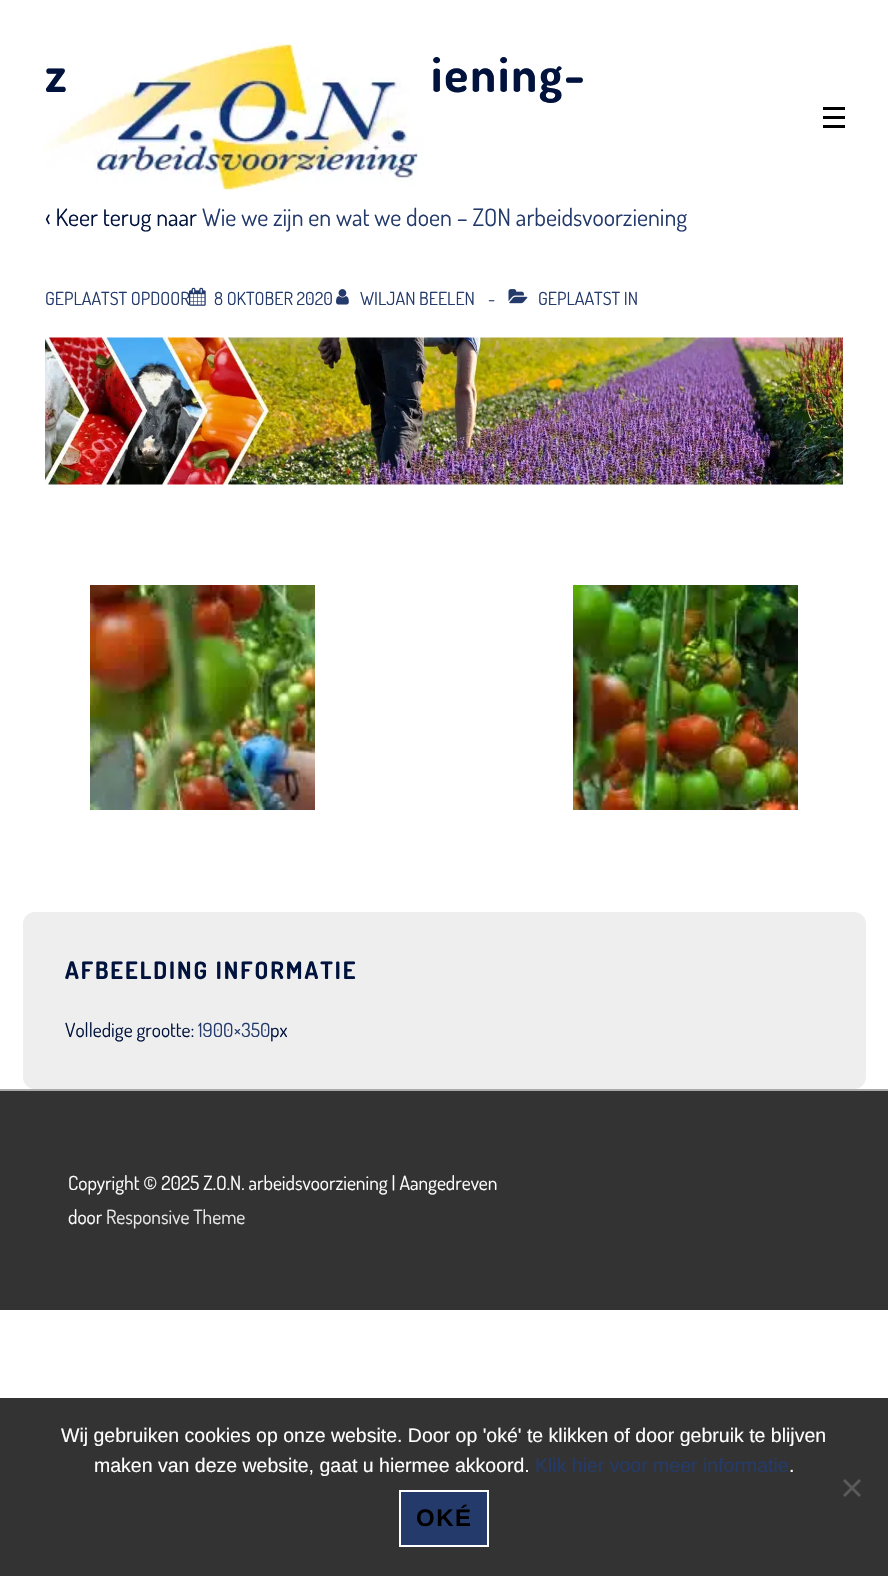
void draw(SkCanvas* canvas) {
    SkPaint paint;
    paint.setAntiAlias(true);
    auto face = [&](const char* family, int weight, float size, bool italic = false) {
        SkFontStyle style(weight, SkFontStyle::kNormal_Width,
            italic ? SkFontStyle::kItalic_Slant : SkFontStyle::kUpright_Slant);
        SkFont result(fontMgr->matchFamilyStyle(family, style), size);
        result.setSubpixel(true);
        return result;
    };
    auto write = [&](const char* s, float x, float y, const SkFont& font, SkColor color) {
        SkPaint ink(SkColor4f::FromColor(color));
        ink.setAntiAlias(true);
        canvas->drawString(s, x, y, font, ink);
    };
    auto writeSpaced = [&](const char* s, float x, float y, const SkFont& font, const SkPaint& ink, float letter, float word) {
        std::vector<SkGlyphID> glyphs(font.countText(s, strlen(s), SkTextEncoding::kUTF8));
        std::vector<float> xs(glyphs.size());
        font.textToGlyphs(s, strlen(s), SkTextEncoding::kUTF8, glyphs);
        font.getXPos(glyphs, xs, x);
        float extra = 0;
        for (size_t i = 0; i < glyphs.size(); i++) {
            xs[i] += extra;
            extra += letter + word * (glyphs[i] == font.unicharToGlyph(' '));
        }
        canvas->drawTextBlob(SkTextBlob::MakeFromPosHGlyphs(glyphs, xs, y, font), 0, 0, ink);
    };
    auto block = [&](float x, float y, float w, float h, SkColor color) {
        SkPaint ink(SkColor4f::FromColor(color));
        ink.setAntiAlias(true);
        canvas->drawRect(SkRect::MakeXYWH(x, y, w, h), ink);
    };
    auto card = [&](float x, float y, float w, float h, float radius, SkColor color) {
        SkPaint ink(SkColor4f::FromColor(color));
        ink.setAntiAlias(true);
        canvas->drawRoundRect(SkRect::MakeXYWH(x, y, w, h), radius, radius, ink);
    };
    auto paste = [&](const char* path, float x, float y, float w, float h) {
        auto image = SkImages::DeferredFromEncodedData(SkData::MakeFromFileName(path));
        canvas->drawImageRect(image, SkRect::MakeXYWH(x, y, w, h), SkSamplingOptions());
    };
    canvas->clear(SK_ColorWHITE);
    auto kFont1 = face("Dosis", 700, 49.5f);
    paint.setColor(SkColorSetRGB(1, 19, 61));
    writeSpaced("z", 45, 92, kFont1, paint, 1.95f, 0);
    paste("pic1.png", 41, 42, 384, 149);
    block(823, 107, 22, 3, SK_ColorBLACK);
    block(823, 116, 22, 3, SK_ColorBLACK);
    block(823, 125, 22, 3, SK_ColorBLACK);
    writeSpaced("iening-", 431, 92, kFont1, paint, 1.95f, 0);
    auto kFont2 = face("Dosis", 400, 24);
    write("‹ Keer terug naar", 45, 226, kFont2, SkColorSetRGB(1, 19, 61));
    write("Wie we zijn en wat we doen – ZON arbeidsvoorziening", 202, 226, kFont2, SkColorSetRGB(35, 58, 107));
    auto kFont3 = face("Dosis", 400, 18);
    write("GEPLAATST OPDOOR", 45, 305, kFont3, SkColorSetRGB(35, 58, 107));
    paste("pic2.png", 189, 287, 17, 19);
    write("8 OKTOBER 2020", 214, 305, kFont3, SkColorSetRGB(35, 58, 107));
    paste("pic3.png", 336, 289, 13, 16);
    write("WILJAN BEELEN", 360, 305, kFont3, SkColorSetRGB(35, 58, 107));
    write("-", 488, 305, kFont3, SkColorSetRGB(35, 58, 107));
    paste("pic4.png", 508, 289, 20, 15);
    write("GEPLAATST IN", 538, 305, kFont3, SkColorSetRGB(35, 58, 107));
    paste("pic5.png", 45, 337, 798, 148);
    paste("pic6.png", 90, 585, 225, 225);
    paste("pic7.png", 573, 585, 225, 225);
    card(23, 912, 843, 177, 12, SkColorSetRGB(238, 238, 238));
    auto kFont4 = face("Dosis", 700, 24);
    writeSpaced("AFBEELDING INFORMATIE", 65, 979, kFont4, paint, 1.95f, 0);
    auto kFont5 = face("Dosis", 400, 19.5f);
    write("Volledige grootte:", 65, 1037, kFont5, SkColorSetRGB(1, 19, 61));
    write("1900×350", 198, 1037, kFont5, SkColorSetRGB(35, 58, 107));
    write("px", 270, 1037, kFont5, SkColorSetRGB(1, 19, 61));
    block(0, 1091, 888, 219, SkColorSetRGB(51, 51, 51));
    block(0, 1089, 888, 2, SkColorSetRGB(170, 170, 170));
    write("Copyright © 2025 Z.O.N. arbeidsvoorziening | Aangedreven", 68, 1190, kFont5, SK_ColorWHITE);
    write("door", 68, 1224, kFont5, SK_ColorWHITE);
    write("Responsive Theme", 106, 1224, kFont5, SkColorSetRGB(234, 234, 234));
    block(0, 1398, 888, 178, SkColorSetRGB(51, 51, 51));
    auto kFont6 = face("Liberation Sans", 400, 19.5f);
    write("Wij gebruiken cookies op onze website. Door op 'oké' te klikken of door gebruik te blijven", 61, 1442, kFont6, SK_ColorWHITE);
    write("maken van deze website, gaat u hiermee akkoord.", 94, 1472, kFont6, SK_ColorWHITE);
    write("Klik hier voor meer informatie", 535, 1472, kFont6, SkColorSetRGB(35, 58, 107));
    write(".", 789, 1472, kFont6, SK_ColorWHITE);
    paint.setColor(SkColorSetRGB(90, 90, 90));
    canvas->drawPath(SkPathBuilder().moveTo(859, 1479).lineTo(861, 1481).lineTo(845, 1497).lineTo(843, 1495).close().detach(), paint);
    canvas->drawPath(SkPathBuilder().moveTo(843, 1481).lineTo(845, 1479).lineTo(861, 1495).lineTo(859, 1497).close().detach(), paint);
    paint.setColor(SkColorSetRGB(35, 58, 107));
    canvas->drawRect(SkRect::MakeXYWH(400, 1491, 88, 55), paint);
    paint.setStyle(SkPaint::kStroke_Style);
    paint.setStrokeWidth(2);
    paint.setColor(SK_ColorWHITE);
    canvas->drawRect(SkRect::MakeXYWH(400, 1491, 88, 55), paint);
    auto kFont7 = face("Liberation Sans", 700, 24);
    paint.setStyle(SkPaint::kFill_Style);
    paint.setColor(SK_ColorBLACK);
    writeSpaced("OKÉ", 416, 1526, kFont7, paint, 1.5f, 0);
}
